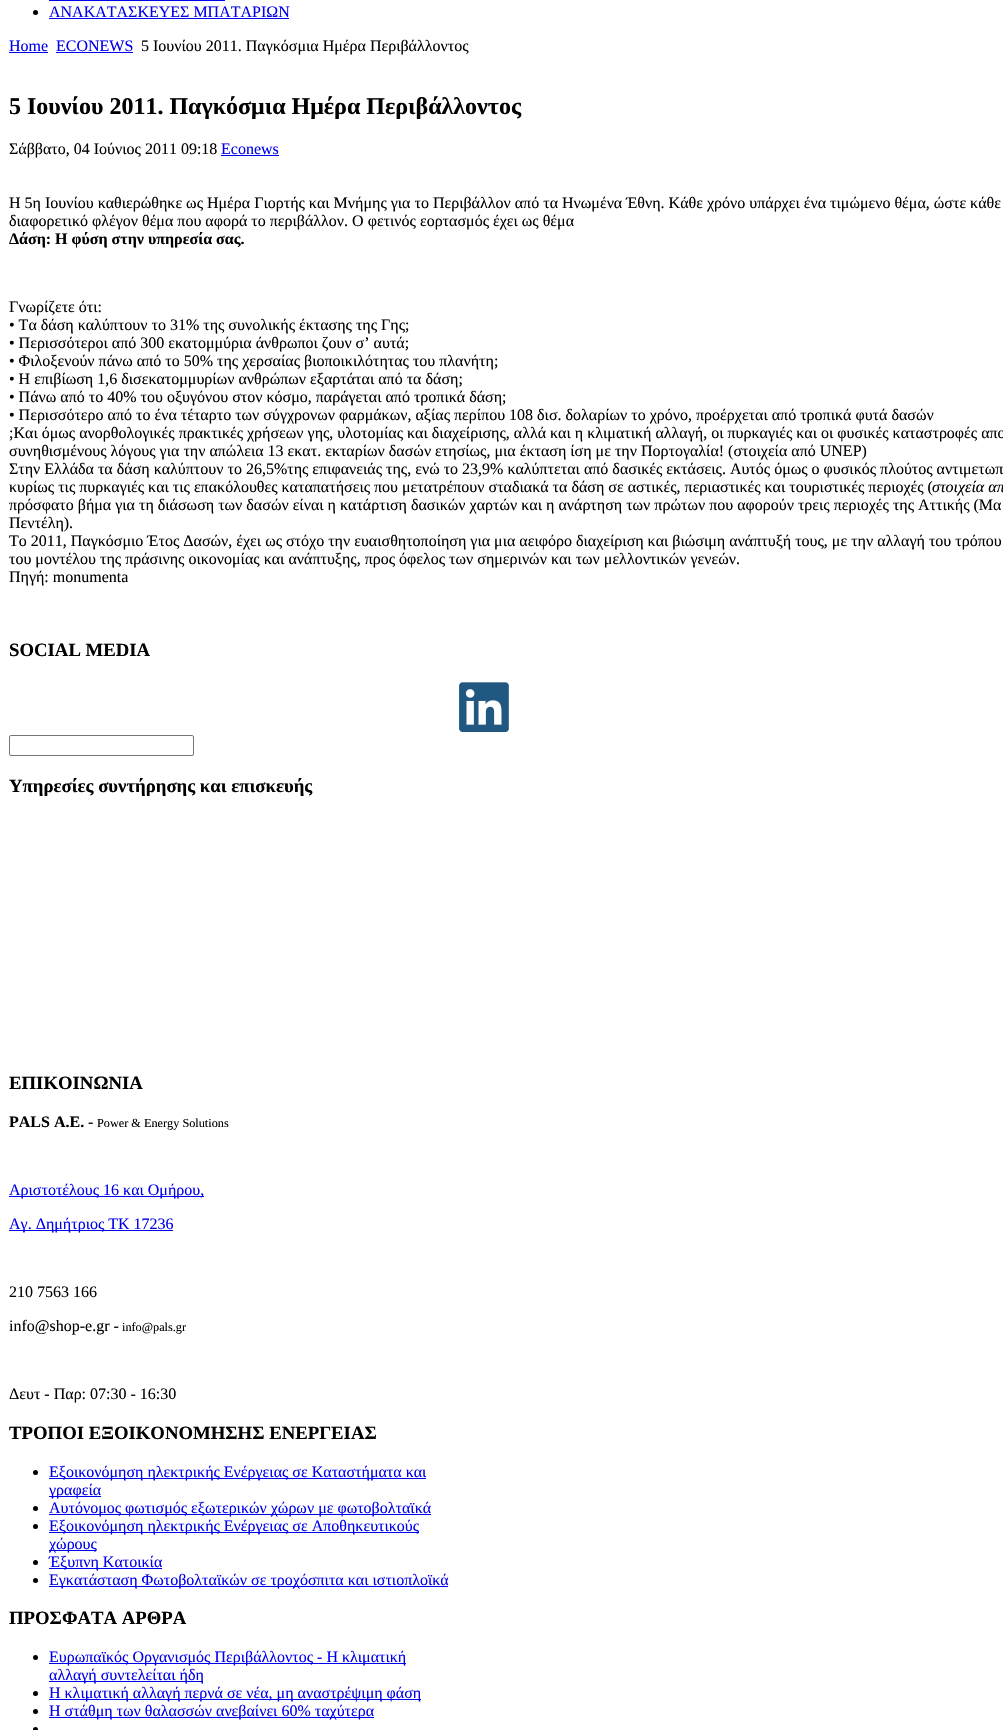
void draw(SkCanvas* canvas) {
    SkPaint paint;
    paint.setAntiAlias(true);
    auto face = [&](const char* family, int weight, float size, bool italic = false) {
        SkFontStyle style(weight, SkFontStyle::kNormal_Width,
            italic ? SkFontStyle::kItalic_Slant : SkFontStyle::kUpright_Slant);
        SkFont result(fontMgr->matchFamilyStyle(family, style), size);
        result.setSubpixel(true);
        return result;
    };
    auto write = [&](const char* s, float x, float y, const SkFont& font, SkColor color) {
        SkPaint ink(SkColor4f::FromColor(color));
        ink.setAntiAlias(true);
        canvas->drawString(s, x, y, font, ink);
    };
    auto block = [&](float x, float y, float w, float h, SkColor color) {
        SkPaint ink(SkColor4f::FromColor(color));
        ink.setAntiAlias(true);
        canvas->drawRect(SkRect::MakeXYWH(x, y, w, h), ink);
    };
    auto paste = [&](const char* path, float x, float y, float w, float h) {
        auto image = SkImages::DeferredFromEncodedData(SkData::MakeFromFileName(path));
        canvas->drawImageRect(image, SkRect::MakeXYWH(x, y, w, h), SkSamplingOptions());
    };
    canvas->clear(SK_ColorWHITE);
    block(49, 0, 176, 1, SkColorSetRGB(0, 0, 238));
    paint.setColor(SK_ColorBLACK);
    canvas->drawCircle(35.5f, 12.5f, 2.5f, paint);
    auto kFont1 = face("Liberation Serif", 400, 16);
    write("ΑΝΑΚΑΤΑΣΚΕΥΕΣ ΜΠΑΤΑΡΙΩΝ", 49, 17, kFont1, SkColorSetRGB(0, 0, 238));
    block(49, 18, 240, 1, SkColorSetRGB(0, 0, 238));
    write("Home", 9, 51, kFont1, SkColorSetRGB(0, 0, 238));
    block(9, 52, 39, 1, SkColorSetRGB(0, 0, 238));
    write("ECONEWS", 56, 51, kFont1, SkColorSetRGB(0, 0, 238));
    block(56, 52, 77, 1, SkColorSetRGB(0, 0, 238));
    write("5 Ιουνίου 2011. Παγκόσμια Ημέρα Περιβάλλοντος", 141, 51, kFont1, SK_ColorBLACK);
    auto kFont2 = face("Liberation Serif", 700, 24);
    write("5 Ιουνίου 2011. Παγκόσμια Ημέρα Περιβάλλοντος", 9, 114, kFont2, SK_ColorBLACK);
    write("Σάββατο, 04 Ιούνιος 2011 09:18", 9, 154, kFont1, SK_ColorBLACK);
    write("Econews", 221, 154, kFont1, SkColorSetRGB(0, 0, 238));
    block(221, 155, 58, 1, SkColorSetRGB(0, 0, 238));
    write("Η 5η Ιουνίου καθιερώθηκε ως Ημέρα Γιορτής και Μνήμης για το Περιβάλλον από τα Ηνωμένα Έθνη. Κάθε χρόνο υπάρχει ένα τιμώμενο θέμα, ώστε κάθε", 9, 208, kFont1, SK_ColorBLACK);
    write("διαφορετικό φλέγον θέμα που αφορά το περιβάλλον. Ο φετινός εορτασμός έχει ως θέμα", 9, 226, kFont1, SK_ColorBLACK);
    auto kFont3 = face("Liberation Serif", 700, 16);
    write("Δάση: Η φύση στην υπηρεσία σας.", 9, 244, kFont3, SK_ColorBLACK);
    write("Γνωρίζετε ότι:", 9, 312, kFont1, SK_ColorBLACK);
    write("• Τα δάση καλύπτουν το 31% της συνολικής έκτασης της Γης;", 9, 330, kFont1, SK_ColorBLACK);
    write("• Περισσότεροι από 300 εκατομμύρια άνθρωποι ζουν σ’ αυτά;", 9, 348, kFont1, SK_ColorBLACK);
    write("• Φιλοξενούν πάνω από το 50% της χερσαίας βιοποικιλότητας του πλανήτη;", 9, 366, kFont1, SK_ColorBLACK);
    write("• Η επιβίωση 1,6 δισεκατομμυρίων ανθρώπων εξαρτάται από τα δάση;", 9, 384, kFont1, SK_ColorBLACK);
    write("• Πάνω από το 40% του οξυγόνου στον κόσμο, παράγεται από τροπικά δάση;", 9, 402, kFont1, SK_ColorBLACK);
    write("• Περισσότερο από το ένα τέταρτο των σύγχρονων φαρμάκων, αξίας περίπου 108 δισ. δολαρίων το χρόνο, προέρχεται από τροπικά φυτά δασών", 9, 420, kFont1, SK_ColorBLACK);
    write(";Και όμως ανορθολογικές πρακτικές χρήσεων γης, υλοτομίας και διαχείρισης, αλλά και η κλιματική αλλαγή, οι πυρκαγιές και οι φυσικές καταστροφές απο", 9, 438, kFont1, SK_ColorBLACK);
    write("συνηθισμένους λόγους για την απώλεια 13 εκατ. εκταρίων δασών ετησίως, μια έκταση ίση με την Πορτογαλία! (στοιχεία από UNEP)", 9, 456, kFont1, SK_ColorBLACK);
    write("Στην Ελλάδα τα δάση καλύπτουν το 26,5%της επιφανειάς της, ενώ το 23,9% καλύπτεται από δασικές εκτάσεις. Αυτός όμως ο φυσικός πλούτος αντιμετωπ", 9, 474, kFont1, SK_ColorBLACK);
    write("κυρίως τις πυρκαγιές και τις επακόλουθες καταπατήσεις που μετατρέπουν σταδιακά τα δάση σε αστικές, περιαστικές και τουριστικές περιοχές (", 9, 492, kFont1, SK_ColorBLACK);
    auto kFont4 = face("Liberation Serif", 400, 16, true);
    write("στοιχεία απ", 932, 492, kFont4, SK_ColorBLACK);
    write("πρόσφατο βήμα για τη διάσωση των δασών είναι η κατάρτιση δασικών χαρτών και η ανάρτηση των πρώτων που αφορούν τρεις περιοχές της Αττικής (Μα", 9, 510, kFont1, SK_ColorBLACK);
    write("Πεντέλη).", 9, 528, kFont1, SK_ColorBLACK);
    write("Το 2011, Παγκόσμιο Έτος Δασών, έχει ως στόχο την ευαισθητοποίηση για μια αειφόρο διαχείριση και βιώσιμη ανάπτυξή τους, με την αλλαγή του τρόπου", 9, 546, kFont1, SK_ColorBLACK);
    write("του μοντέλου της πράσινης οικονομίας και ανάπτυξης, προς όφελος των σημερινών και των μελλοντικών γενεών.", 9, 564, kFont1, SK_ColorBLACK);
    write("Πηγή: monumenta", 9, 582, kFont1, SK_ColorBLACK);
    auto kFont5 = face("Liberation Serif", 700, 18.75f);
    write("SOCIAL MEDIA", 9, 656, kFont5, SK_ColorBLACK);
    paste("pic1.png", 459, 682, 50, 50);
    paint.setStyle(SkPaint::kStroke_Style);
    paint.setStrokeWidth(1);
    paint.setColor(SkColorSetRGB(118, 118, 118));
    canvas->drawRoundRect(SkRect::MakeXYWH(9.5f, 735.5f, 184, 20), 1.5f, 1.5f, paint);
    write("Υπηρεσίες συντήρησης και επισκευής", 9, 792, kFont5, SK_ColorBLACK);
    write("ΕΠΙΚΟΙΝΩΝΙΑ", 9, 1089, kFont5, SK_ColorBLACK);
    write("PALS A.E.", 9, 1127, kFont3, SK_ColorBLACK);
    write("-", 88, 1127, kFont1, SK_ColorBLACK);
    auto kFont6 = face("Liberation Serif", 400, 12.25f);
    write("Power & Energy Solutions", 97, 1127, kFont6, SK_ColorBLACK);
    block(9, 1196, 195, 1, SkColorSetRGB(0, 0, 238));
    write("Αριστοτέλους 16 και Ομήρου,", 9, 1195, kFont1, SkColorSetRGB(0, 0, 238));
    block(9, 1230, 164, 1, SkColorSetRGB(0, 0, 238));
    write("Αγ. Δημήτριος ΤΚ 17236", 9, 1229, kFont1, SkColorSetRGB(0, 0, 238));
    write("210 7563 166", 9, 1297, kFont1, SK_ColorBLACK);
    write("info@shop-e.gr -", 9, 1331, kFont1, SK_ColorBLACK);
    write("info@pals.gr", 122, 1331, kFont6, SK_ColorBLACK);
    write("Δευτ - Παρ: 07:30 - 16:30", 9, 1399, kFont1, SK_ColorBLACK);
    write("ΤΡΟΠΟΙ ΕΞΟΙΚΟΝΟΜΗΣΗΣ ΕΝΕΡΓΕΙΑΣ", 9, 1439, kFont5, SK_ColorBLACK);
    paint.setStyle(SkPaint::kFill_Style);
    paint.setColor(SK_ColorBLACK);
    canvas->drawCircle(35.5f, 1472.5f, 2.5f, paint);
    block(49, 1478, 377, 1, SkColorSetRGB(0, 0, 238));
    write("Εξοικονόμηση ηλεκτρικής Ενέργειας σε Καταστήματα και", 49, 1477, kFont1, SkColorSetRGB(0, 0, 238));
    block(49, 1496, 52, 1, SkColorSetRGB(0, 0, 238));
    write("γραφεία", 49, 1495, kFont1, SkColorSetRGB(0, 0, 238));
    canvas->drawCircle(35.5f, 1508.5f, 2.5f, paint);
    block(49, 1514, 382, 1, SkColorSetRGB(0, 0, 238));
    write("Αυτόνομος φωτισμός εξωτερικών χώρων με φωτοβολταϊκά", 49, 1513, kFont1, SkColorSetRGB(0, 0, 238));
    canvas->drawCircle(35.5f, 1526.5f, 2.5f, paint);
    block(49, 1532, 370, 1, SkColorSetRGB(0, 0, 238));
    write("Εξοικονόμηση ηλεκτρικής Ενέργειας σε Αποθηκευτικούς", 49, 1531, kFont1, SkColorSetRGB(0, 0, 238));
    block(49, 1550, 47, 1, SkColorSetRGB(0, 0, 238));
    write("χώρους", 49, 1549, kFont1, SkColorSetRGB(0, 0, 238));
    canvas->drawCircle(35.5f, 1562.5f, 2.5f, paint);
    block(49, 1568, 113, 1, SkColorSetRGB(0, 0, 238));
    write("Έξυπνη Κατοικία", 49, 1567, kFont1, SkColorSetRGB(0, 0, 238));
    canvas->drawCircle(35.5f, 1580.5f, 2.5f, paint);
    block(49, 1586, 399, 1, SkColorSetRGB(0, 0, 238));
    write("Εγκατάσταση Φωτοβολταϊκών σε τροχόσπιτα και ιστιοπλοϊκά", 49, 1585, kFont1, SkColorSetRGB(0, 0, 238));
    write("ΠΡΟΣΦΑΤΑ ΑΡΘΡΑ", 9, 1624, kFont5, SK_ColorBLACK);
    canvas->drawCircle(35.5f, 1657.5f, 2.5f, paint);
    block(49, 1663, 357, 1, SkColorSetRGB(0, 0, 238));
    write("Ευρωπαϊκός Οργανισμός Περιβάλλοντος - Η κλιματική", 49, 1662, kFont1, SkColorSetRGB(0, 0, 238));
    block(49, 1681, 154, 1, SkColorSetRGB(0, 0, 238));
    write("αλλαγή συντελείται ήδη", 49, 1680, kFont1, SkColorSetRGB(0, 0, 238));
    canvas->drawCircle(35.5f, 1693.5f, 2.5f, paint);
    block(49, 1699, 372, 1, SkColorSetRGB(0, 0, 238));
    write("Η κλιματική αλλαγή περνά σε νέα, μη αναστρέψιμη φάση", 49, 1698, kFont1, SkColorSetRGB(0, 0, 238));
    canvas->drawCircle(35.5f, 1711.5f, 2.5f, paint);
    block(49, 1717, 325, 1, SkColorSetRGB(0, 0, 238));
    write("Η στάθμη των θαλασσών ανεβαίνει 60% ταχύτερα", 49, 1716, kFont1, SkColorSetRGB(0, 0, 238));
    canvas->drawCircle(35.5f, 1729.5f, 2.5f, paint);
}
